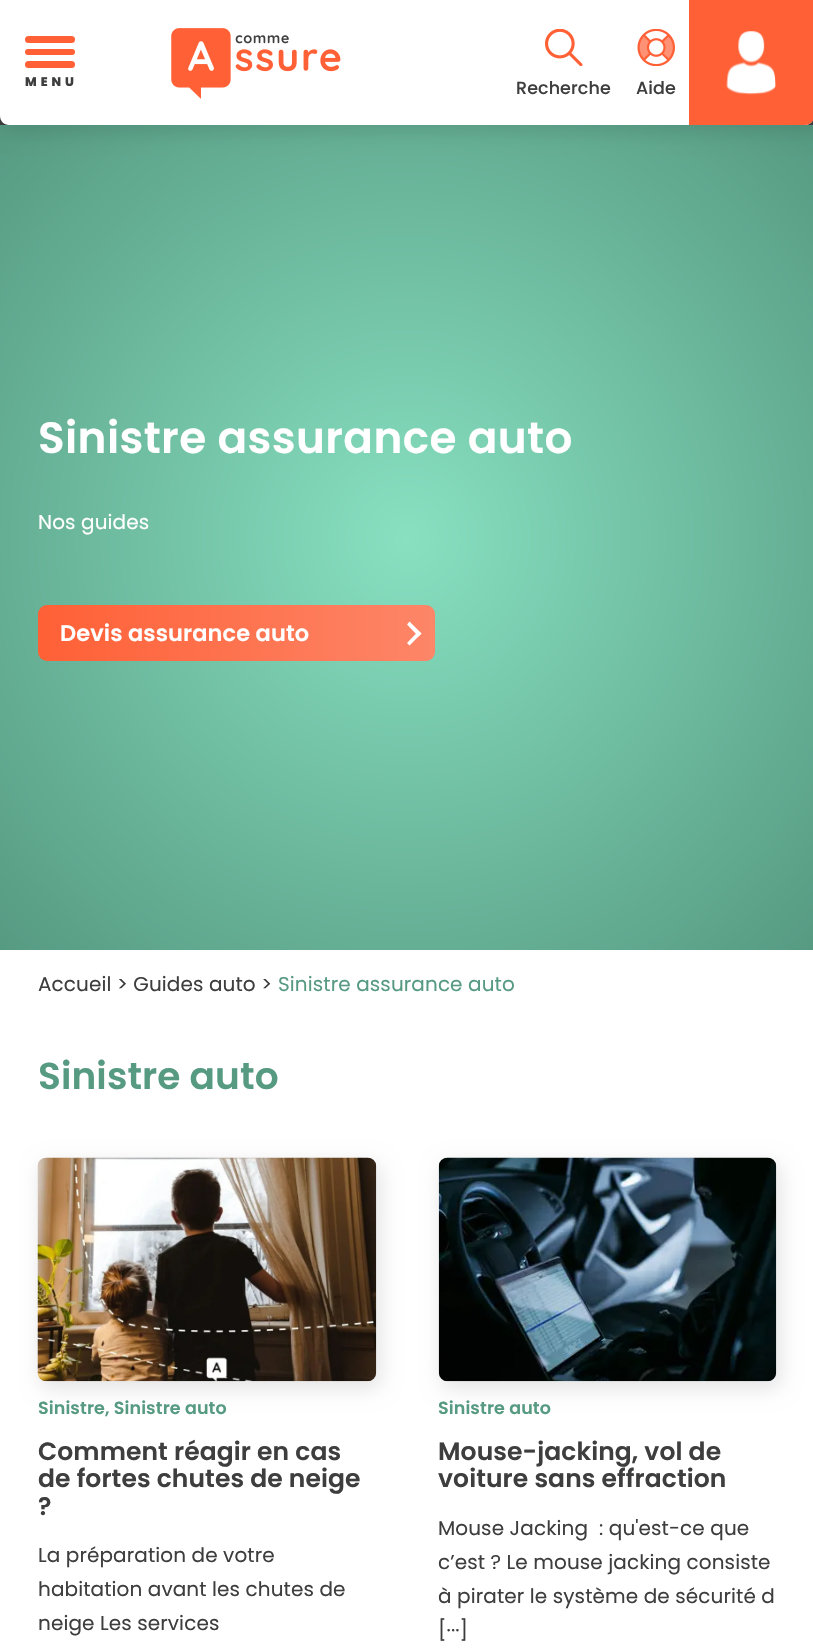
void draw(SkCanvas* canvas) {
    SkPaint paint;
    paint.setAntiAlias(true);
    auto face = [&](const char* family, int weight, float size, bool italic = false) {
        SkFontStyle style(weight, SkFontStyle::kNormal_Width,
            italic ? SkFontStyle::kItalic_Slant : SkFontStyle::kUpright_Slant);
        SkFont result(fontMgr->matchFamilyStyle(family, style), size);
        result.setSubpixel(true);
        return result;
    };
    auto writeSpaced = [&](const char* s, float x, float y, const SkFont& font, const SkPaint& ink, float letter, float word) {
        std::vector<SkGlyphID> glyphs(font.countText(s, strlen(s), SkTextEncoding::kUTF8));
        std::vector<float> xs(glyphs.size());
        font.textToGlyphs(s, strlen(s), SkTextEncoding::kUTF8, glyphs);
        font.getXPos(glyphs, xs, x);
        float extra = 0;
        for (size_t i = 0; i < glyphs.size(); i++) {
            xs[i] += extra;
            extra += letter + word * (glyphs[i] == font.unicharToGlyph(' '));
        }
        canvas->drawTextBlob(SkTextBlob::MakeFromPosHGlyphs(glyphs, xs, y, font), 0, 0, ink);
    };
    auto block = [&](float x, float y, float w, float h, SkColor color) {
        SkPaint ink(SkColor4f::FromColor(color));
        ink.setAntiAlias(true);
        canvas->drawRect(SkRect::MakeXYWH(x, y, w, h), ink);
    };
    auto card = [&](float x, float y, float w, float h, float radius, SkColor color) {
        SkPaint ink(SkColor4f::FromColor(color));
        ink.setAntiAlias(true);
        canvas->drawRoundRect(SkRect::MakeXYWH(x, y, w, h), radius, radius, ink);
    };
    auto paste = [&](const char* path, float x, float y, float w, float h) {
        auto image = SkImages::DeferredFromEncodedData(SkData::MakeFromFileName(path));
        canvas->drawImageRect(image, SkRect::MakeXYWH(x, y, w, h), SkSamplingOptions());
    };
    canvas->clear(SkColorSetRGB(62, 62, 62));
    {
        const SkColor colors[] = {SkColorSetRGB(136, 224, 193), SkColorSetRGB(86, 154, 130)};
        const float stops[] = {0, 1};
        SkMatrix m = SkMatrix::Translate(407, 538).preScale(575, 583);
        paint.setShader(SkGradientShader::MakeRadial({0, 0}, 1, colors, stops, 2, SkTileMode::kClamp, 0, &m));
        paint.setAlpha(255);
    }
    canvas->drawRect(SkRect::MakeXYWH(0, 125, 813, 825), paint);
    paint.setShader(nullptr);
    paint.setColor(SkColorSetARGB(26, 0, 0, 0));
    paint.setMaskFilter(SkMaskFilter::MakeBlur(kNormal_SkBlurStyle, 9.5f));
    canvas->drawRoundRect(SkRect::MakeXYWH(3, 5, 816, 128), 10, 10, paint);
    paint.setMaskFilter(nullptr);
    paint.setColor(SK_ColorWHITE);
    canvas->drawPath(SkPathBuilder().moveTo(0, 0).lineTo(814, 0).lineTo(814, 116).cubicTo(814, 121, 810, 125, 805, 125).lineTo(9, 125).cubicTo(4, 125, 0, 121, 0, 116).close().detach(), paint);
    card(25, 36, 50, 7, 3.5f, SkColorSetRGB(255, 96, 54));
    card(25, 49, 50, 6, 3, SkColorSetRGB(255, 96, 54));
    card(25, 61, 50, 7, 3.5f, SkColorSetRGB(255, 96, 54));
    auto kFont1 = face("Poppins", 800, 12.5f);
    paint.setColor(SkColorSetRGB(62, 62, 62));
    writeSpaced("MENU", 25, 86, kFont1, paint, 4, 0);
    paste("pic1.png", 171, 28, 170, 71);
    paste("pic2.png", 544, 29, 39, 37);
    auto kFont2 = face("Poppins", 500, 17.5f);
    writeSpaced("Recherche", 516, 94, kFont2, paint, 0.1f, 0);
    paste("pic3.png", 637, 29, 38, 37);
    writeSpaced("Aide", 636, 94, kFont2, paint, 0.1f, 0);
    paint.setColor(SkColorSetRGB(255, 96, 54));
    canvas->drawPath(SkPathBuilder().moveTo(689, 0).lineTo(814, 0).lineTo(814, 116).cubicTo(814, 121, 810, 125, 805, 125).lineTo(689, 125).close().detach(), paint);
    paste("pic4.png", 726, 31, 50, 64);
    auto kFont3 = face("Poppins", 600, 43.75f);
    paint.setColor(SK_ColorWHITE);
    writeSpaced("Sinistre assurance auto", 38, 453, kFont3, paint, 0.4f, 0);
    auto kFont4 = face("Poppins", 400, 20);
    writeSpaced("Nos guides", 38, 529, kFont4, paint, 0.1f, 0);
    {
        const SkColor colors[] = {SkColorSetRGB(255, 96, 54), SkColorSetRGB(253, 134, 104)};
        const float stops[] = {0, 1};
        const SkPoint ends[] = {{38, 633}, {435, 633}};
        paint.setShader(SkGradientShader::MakeLinear(ends, colors, stops, 2, SkTileMode::kClamp));
        paint.setAlpha(255);
    }
    canvas->drawRoundRect(SkRect::MakeXYWH(38, 605, 397, 56), 9, 9, paint);
    auto kFont5 = face("Poppins", 600, 22.5f);
    paint.setShader(nullptr);
    paint.setColor(SK_ColorWHITE);
    writeSpaced("Devis assurance auto", 60, 641, kFont5, paint, 0.1f, 0);
    canvas->drawPath(SkPathBuilder().moveTo(409.5f, 621.5f).lineTo(421.5f, 633.5f).lineTo(418.5f, 636.5f).lineTo(407, 624.5f).close().detach(), paint);
    canvas->drawPath(SkPathBuilder().moveTo(418.5f, 631).lineTo(421.5f, 633.5f).lineTo(409.5f, 645.5f).lineTo(407, 643).close().detach(), paint);
    block(0, 950, 813, 700, SK_ColorWHITE);
    paint.setColor(SkColorSetRGB(62, 62, 62));
    writeSpaced("Accueil > Guides auto >", 38, 991, kFont4, paint, 0.1f, 0);
    paint.setColor(SkColorSetRGB(86, 154, 130));
    writeSpaced("Sinistre assurance auto", 278, 991, kFont4, paint, 0.1f, 0);
    auto kFont6 = face("Poppins", 600, 37.5f);
    writeSpaced("Sinistre auto", 38, 1089, kFont6, paint, 0.1f, 0);
    paint.setColor(SkColorSetARGB(26, 0, 0, 0));
    paint.setMaskFilter(SkMaskFilter::MakeBlur(kNormal_SkBlurStyle, 9.5f));
    canvas->drawRoundRect(SkRect::MakeXYWH(40, 1163, 341, 226), 10, 10, paint);
    paint.setMaskFilter(nullptr);
    paste("pic5.png", 37, 1157, 340, 225);
    auto kFont7 = face("Poppins", 600, 17.5f);
    paint.setColor(SkColorSetRGB(86, 154, 130));
    writeSpaced("Sinistre, Sinistre auto", 38, 1414, kFont7, paint, 0.1f, 0);
    auto kFont8 = face("Poppins", 600, 25);
    paint.setColor(SkColorSetRGB(62, 62, 62));
    writeSpaced("Comment réagir en cas", 38, 1460, kFont8, paint, 0.1f, 0);
    writeSpaced("de fortes chutes de neige", 38, 1487, kFont8, paint, 0.1f, 0);
    writeSpaced("?", 38, 1515, kFont8, paint, 0.1f, 0);
    writeSpaced("La préparation de votre", 38, 1562, kFont4, paint, 0.1f, 0);
    writeSpaced("habitation avant les chutes de", 38, 1596, kFont4, paint, 0.1f, 0);
    writeSpaced("neige Les services", 38, 1630, kFont4, paint, 0.1f, 0);
    paint.setColor(SkColorSetARGB(26, 0, 0, 0));
    paint.setMaskFilter(SkMaskFilter::MakeBlur(kNormal_SkBlurStyle, 9.5f));
    canvas->drawRoundRect(SkRect::MakeXYWH(441, 1163, 340, 226), 10, 10, paint);
    paint.setMaskFilter(nullptr);
    paste("pic6.png", 438, 1157, 339, 225);
    paint.setColor(SkColorSetRGB(86, 154, 130));
    writeSpaced("Sinistre auto", 438, 1414, kFont7, paint, 0.1f, 0);
    paint.setColor(SkColorSetRGB(62, 62, 62));
    writeSpaced("Mouse-jacking, vol de", 438, 1460, kFont8, paint, 0.1f, 0);
    writeSpaced("voiture sans effraction", 438, 1487, kFont8, paint, 0.1f, 0);
    writeSpaced("Mouse Jacking  : qu'est-ce que", 438, 1535, kFont4, paint, 0.1f, 0);
    writeSpaced("c’est ? Le mouse jacking consiste", 438, 1569, kFont4, paint, 0.1f, 0);
    writeSpaced("à pirater le système de sécurité d", 438, 1603, kFont4, paint, 0.1f, 0);
    writeSpaced("[···]", 438, 1637, kFont4, paint, 0.1f, 0);
}
